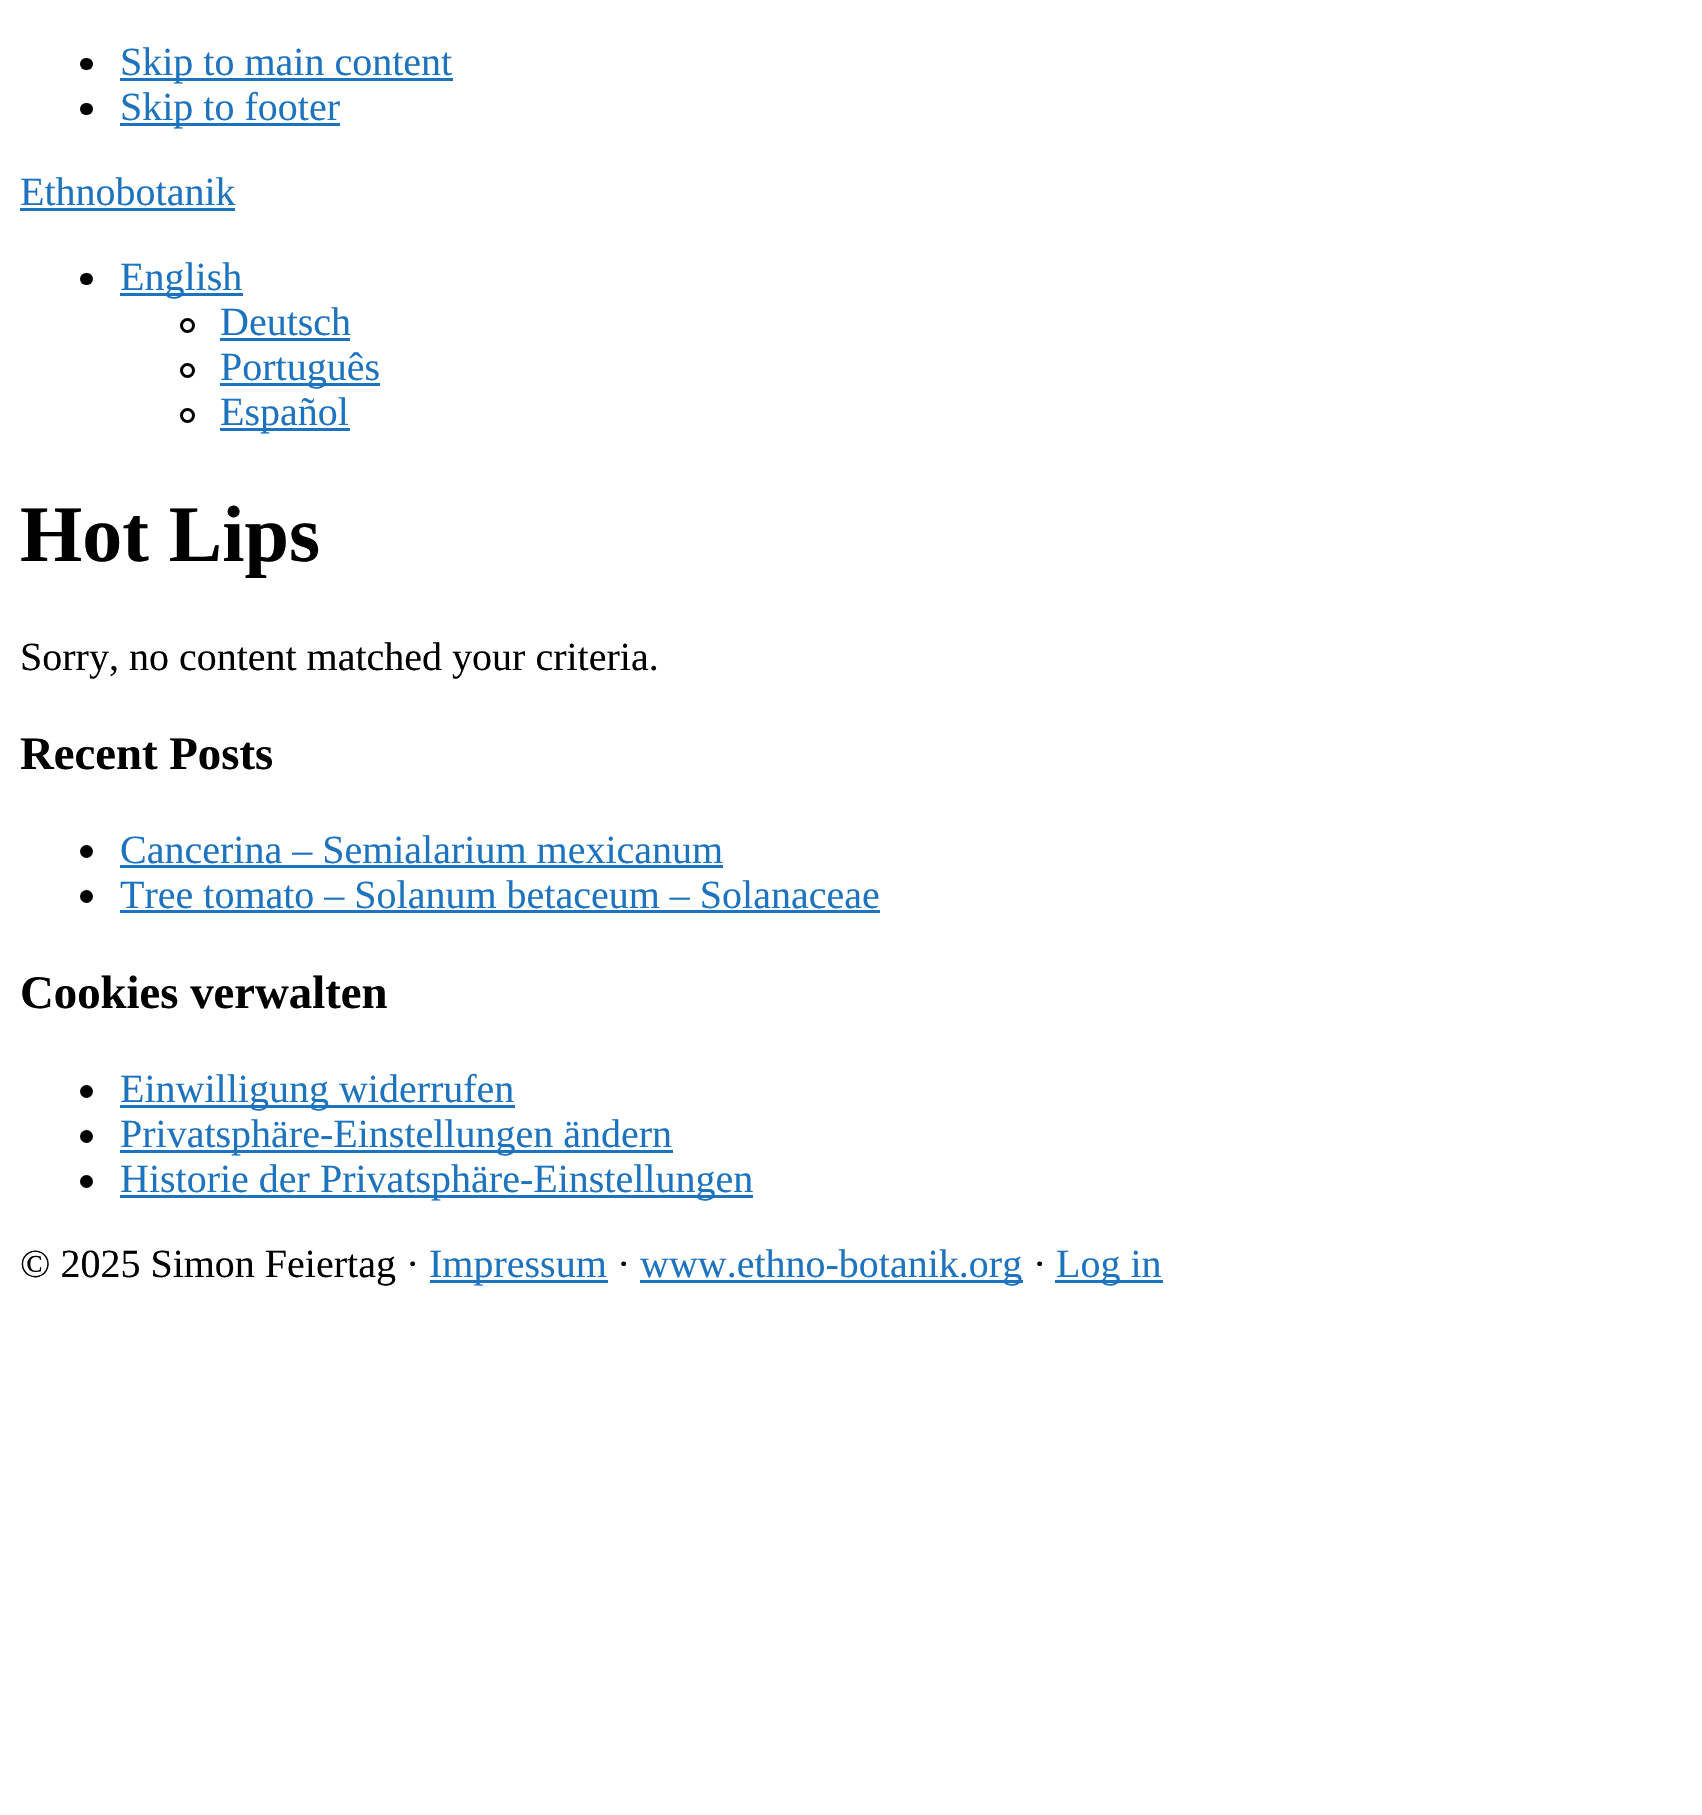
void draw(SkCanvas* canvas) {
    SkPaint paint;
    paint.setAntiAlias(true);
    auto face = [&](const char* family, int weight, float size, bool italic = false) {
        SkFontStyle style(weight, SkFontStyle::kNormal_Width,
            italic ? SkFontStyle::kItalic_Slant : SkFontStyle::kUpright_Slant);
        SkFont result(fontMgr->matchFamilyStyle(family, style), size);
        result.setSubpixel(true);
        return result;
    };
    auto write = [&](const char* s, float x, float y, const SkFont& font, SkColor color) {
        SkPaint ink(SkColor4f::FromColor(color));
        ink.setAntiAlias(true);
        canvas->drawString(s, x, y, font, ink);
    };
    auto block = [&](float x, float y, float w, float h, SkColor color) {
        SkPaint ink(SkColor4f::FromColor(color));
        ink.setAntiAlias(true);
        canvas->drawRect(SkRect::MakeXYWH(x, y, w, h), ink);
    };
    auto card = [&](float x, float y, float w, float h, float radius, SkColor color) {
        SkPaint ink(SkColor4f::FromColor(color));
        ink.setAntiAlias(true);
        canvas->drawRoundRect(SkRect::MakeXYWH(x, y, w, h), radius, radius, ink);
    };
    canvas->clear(SK_ColorWHITE);
    card(80, 58, 13, 12, 6, SK_ColorBLACK);
    block(120, 78, 333, 3, SkColorSetRGB(30, 115, 190));
    auto kFont1 = face("Liberation Serif", 400, 40);
    write("Skip to main content", 120, 75, kFont1, SkColorSetRGB(30, 115, 190));
    card(80, 103, 13, 12, 6, SK_ColorBLACK);
    block(120, 123, 220, 3, SkColorSetRGB(30, 115, 190));
    write("Skip to footer", 120, 120, kFont1, SkColorSetRGB(30, 115, 190));
    write("Ethnobotanik", 20, 205, kFont1, SkColorSetRGB(30, 115, 190));
    block(20, 208, 215, 3, SkColorSetRGB(30, 115, 190));
    card(80, 273, 13, 12, 6, SK_ColorBLACK);
    block(120, 293, 123, 3, SkColorSetRGB(30, 115, 190));
    write("English", 120, 290, kFont1, SkColorSetRGB(30, 115, 190));
    paint.setStyle(SkPaint::kStroke_Style);
    paint.setStrokeWidth(3);
    paint.setColor(SK_ColorBLACK);
    canvas->drawCircle(187.5f, 325.5f, 6, paint);
    write("Deutsch", 220, 335, kFont1, SkColorSetRGB(30, 115, 190));
    block(220, 338, 130, 3, SkColorSetRGB(30, 115, 190));
    canvas->drawCircle(187.5f, 370.5f, 6, paint);
    block(220, 383, 160, 3, SkColorSetRGB(30, 115, 190));
    write("Português", 220, 380, kFont1, SkColorSetRGB(30, 115, 190));
    canvas->drawCircle(187.5f, 415.5f, 6, paint);
    block(220, 428, 130, 3, SkColorSetRGB(30, 115, 190));
    write("Español", 220, 425, kFont1, SkColorSetRGB(30, 115, 190));
    auto kFont2 = face("Liberation Serif", 700, 80);
    write("Hot Lips", 20, 561, kFont2, SK_ColorBLACK);
    write("Sorry, no content matched your criteria.", 20, 670, kFont1, SK_ColorBLACK);
    auto kFont3 = face("Liberation Serif", 700, 46.75f);
    write("Recent Posts", 20, 769, kFont3, SK_ColorBLACK);
    paint.setStyle(SkPaint::kFill_Style);
    canvas->drawCircle(86.5f, 851.5f, 6.5f, paint);
    write("Cancerina – Semialarium mexicanum", 120, 863, kFont1, SkColorSetRGB(30, 115, 190));
    block(120, 865, 603, 3, SkColorSetRGB(30, 115, 190));
    canvas->drawCircle(86.5f, 896.5f, 6.5f, paint);
    write("Tree tomato – Solanum betaceum – Solanaceae", 120, 908, kFont1, SkColorSetRGB(30, 115, 190));
    block(120, 910, 760, 3, SkColorSetRGB(30, 115, 190));
    write("Cookies verwalten", 20, 1008, kFont3, SK_ColorBLACK);
    canvas->drawCircle(86.5f, 1091.5f, 6.5f, paint);
    block(120, 1105, 395, 3, SkColorSetRGB(30, 115, 190));
    write("Einwilligung widerrufen", 120, 1102, kFont1, SkColorSetRGB(30, 115, 190));
    canvas->drawCircle(86.5f, 1136.5f, 6.5f, paint);
    block(120, 1150, 553, 3, SkColorSetRGB(30, 115, 190));
    write("Privatsphäre-Einstellungen ändern", 120, 1147, kFont1, SkColorSetRGB(30, 115, 190));
    canvas->drawCircle(86.5f, 1181.5f, 6.5f, paint);
    block(120, 1195, 633, 3, SkColorSetRGB(30, 115, 190));
    write("Historie der Privatsphäre-Einstellungen", 120, 1192, kFont1, SkColorSetRGB(30, 115, 190));
    write("© 2025 Simon Feiertag ·", 20, 1277, kFont1, SK_ColorBLACK);
    block(430, 1280, 178, 3, SkColorSetRGB(30, 115, 190));
    write("Impressum", 429, 1277, kFont1, SkColorSetRGB(30, 115, 190));
    write("·", 617, 1277, kFont1, SK_ColorBLACK);
    block(640, 1280, 383, 3, SkColorSetRGB(30, 115, 190));
    write("www.ethno-botanik.org", 640, 1277, kFont1, SkColorSetRGB(30, 115, 190));
    write("·", 1033, 1277, kFont1, SK_ColorBLACK);
    block(1055, 1280, 108, 3, SkColorSetRGB(30, 115, 190));
    write("Log in", 1056, 1277, kFont1, SkColorSetRGB(30, 115, 190));
}
